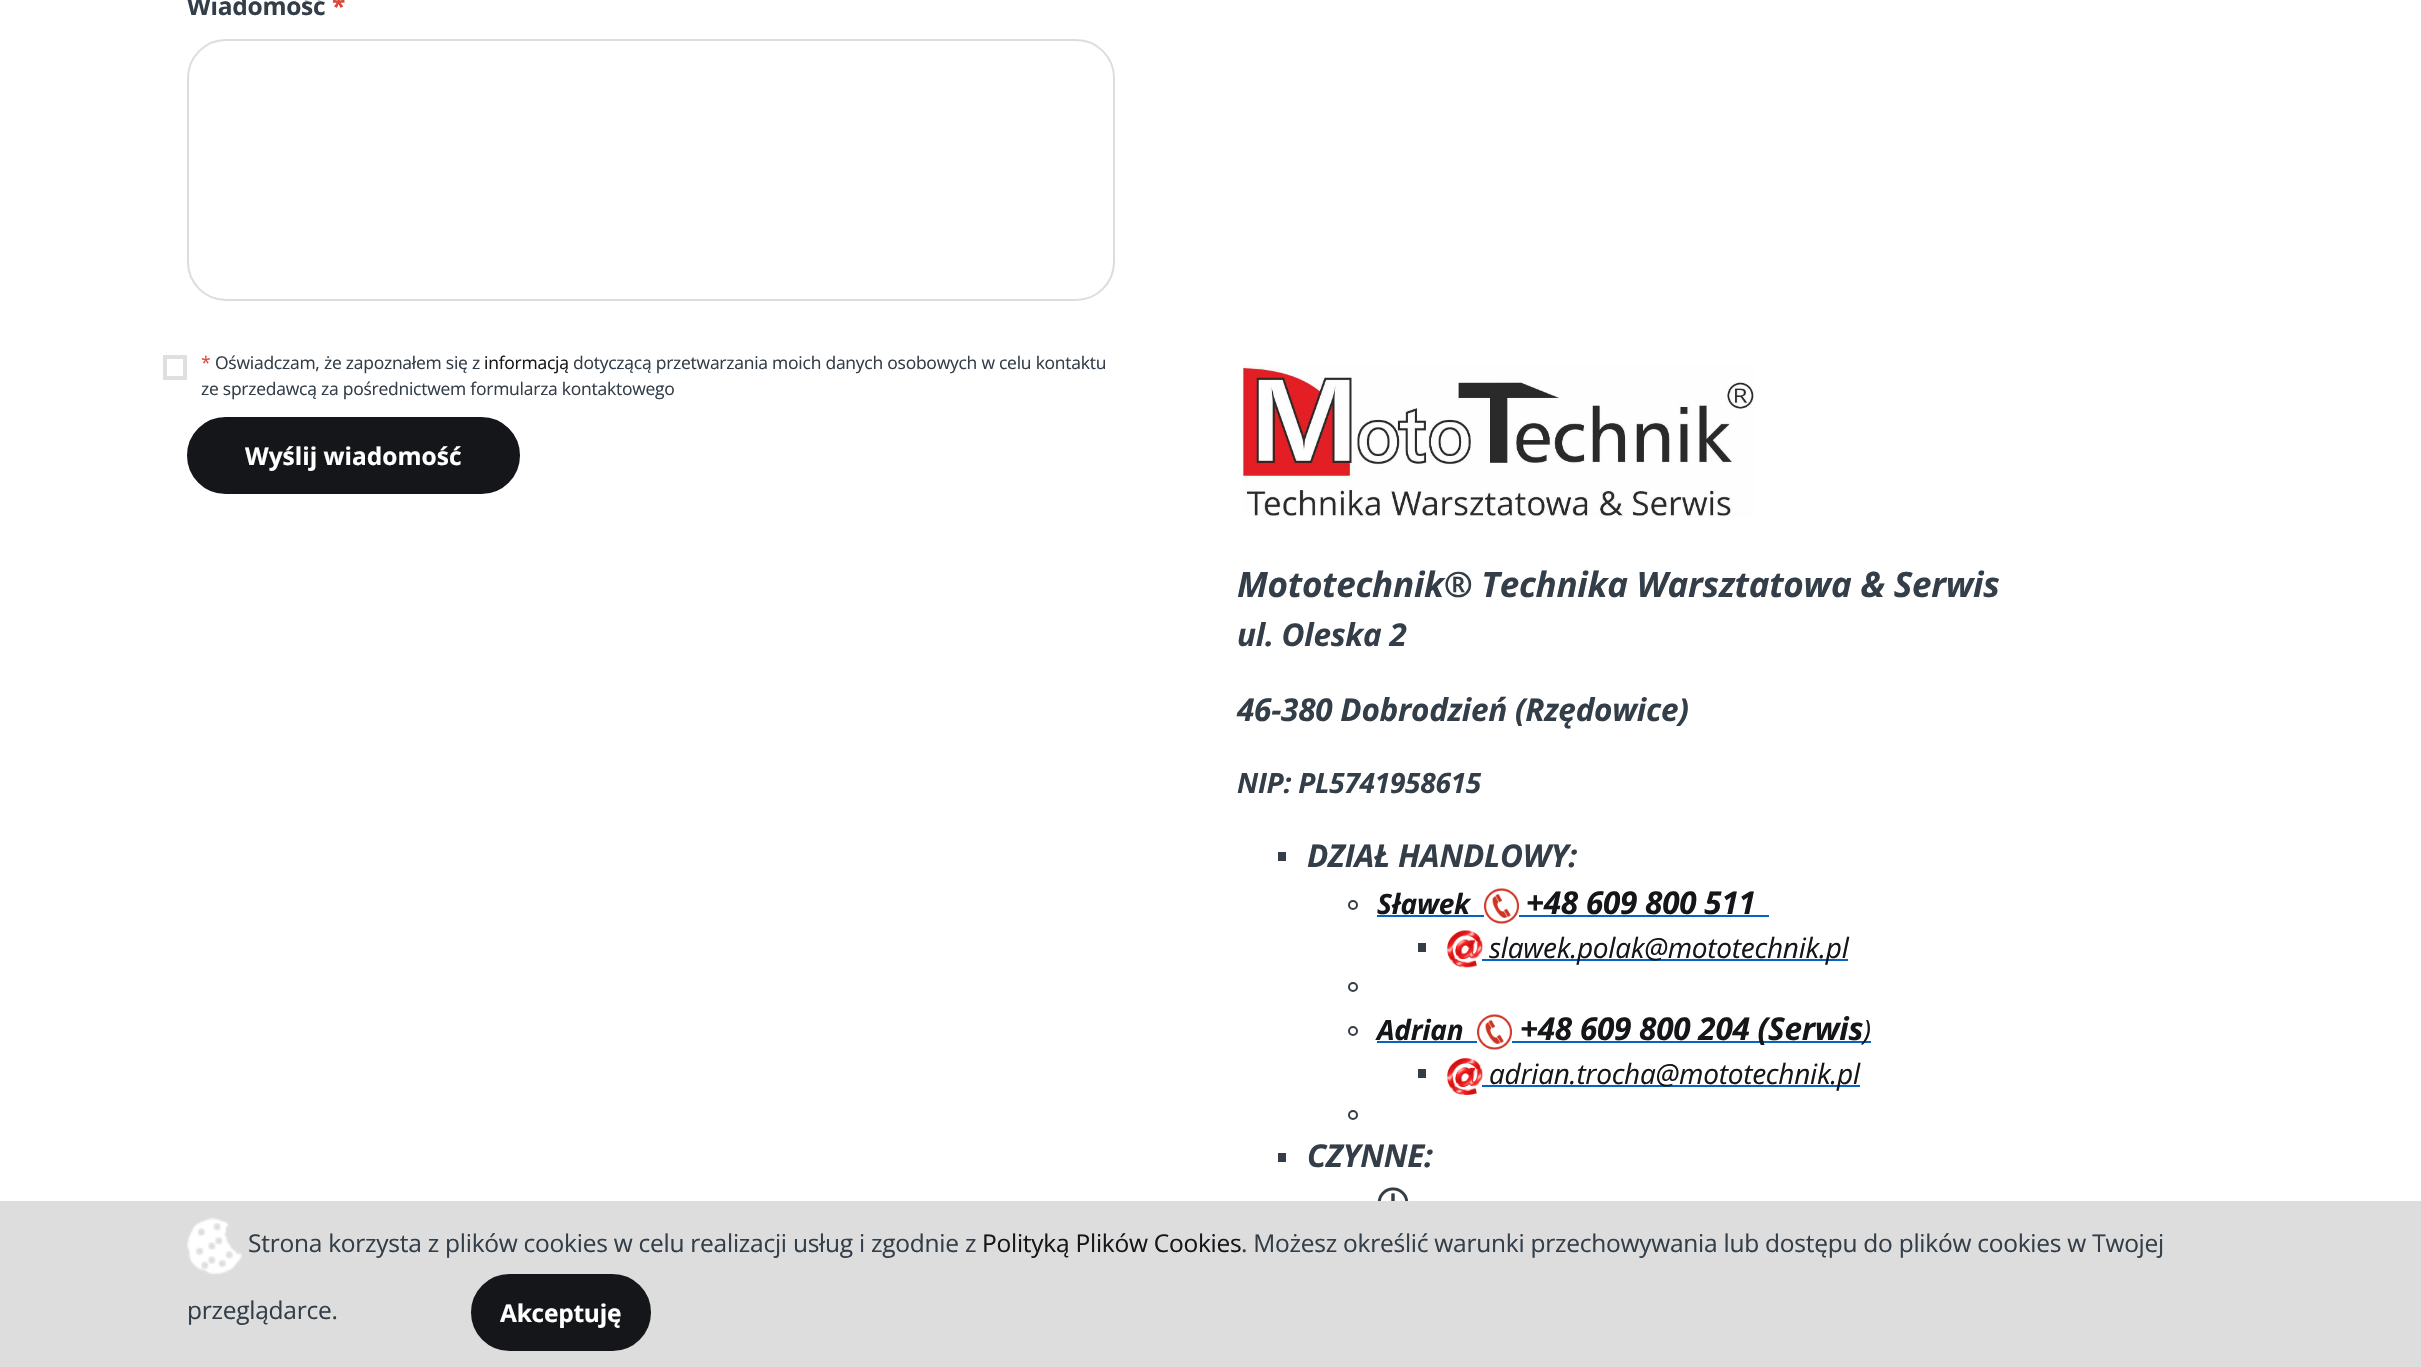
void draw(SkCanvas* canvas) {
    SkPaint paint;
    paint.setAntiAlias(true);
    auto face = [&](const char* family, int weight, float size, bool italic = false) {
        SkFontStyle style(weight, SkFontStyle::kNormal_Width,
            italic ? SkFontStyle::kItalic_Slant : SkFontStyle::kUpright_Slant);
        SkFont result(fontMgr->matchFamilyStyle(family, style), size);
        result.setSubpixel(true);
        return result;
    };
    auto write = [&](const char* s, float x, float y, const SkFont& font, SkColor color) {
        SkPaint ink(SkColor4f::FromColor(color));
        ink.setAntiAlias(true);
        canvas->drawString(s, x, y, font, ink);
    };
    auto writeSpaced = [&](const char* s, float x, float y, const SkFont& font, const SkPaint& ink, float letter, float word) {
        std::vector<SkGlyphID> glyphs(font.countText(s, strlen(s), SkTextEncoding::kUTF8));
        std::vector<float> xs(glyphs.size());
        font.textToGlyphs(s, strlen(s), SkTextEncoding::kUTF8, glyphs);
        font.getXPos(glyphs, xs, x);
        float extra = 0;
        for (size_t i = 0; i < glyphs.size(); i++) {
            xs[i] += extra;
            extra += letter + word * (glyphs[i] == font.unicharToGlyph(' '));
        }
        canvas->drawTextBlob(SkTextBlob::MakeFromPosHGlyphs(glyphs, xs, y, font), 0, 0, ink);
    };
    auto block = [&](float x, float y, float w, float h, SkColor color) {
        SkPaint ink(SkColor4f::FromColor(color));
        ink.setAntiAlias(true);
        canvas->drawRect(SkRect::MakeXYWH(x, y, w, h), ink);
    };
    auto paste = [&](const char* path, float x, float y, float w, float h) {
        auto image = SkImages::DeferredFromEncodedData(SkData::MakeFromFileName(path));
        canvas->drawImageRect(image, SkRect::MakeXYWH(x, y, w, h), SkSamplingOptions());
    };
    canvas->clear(SK_ColorWHITE);
    auto kFont1 = face("Open Sans", 700, 24.5f);
    paint.setColor(SkColorSetRGB(51, 62, 72));
    writeSpaced("Wiadomość", 187, 15, kFont1, paint, -0.25f, 0);
    paint.setColor(SkColorSetRGB(222, 68, 55));
    writeSpaced("*", 332, 15, kFont1, paint, -0.25f, 0);
    paint.setStyle(SkPaint::kStroke_Style);
    paint.setStrokeWidth(2);
    paint.setColor(SkColorSetRGB(221, 221, 221));
    canvas->drawRoundRect(SkRect::MakeXYWH(188, 40, 926, 260), 38, 38, paint);
    paint.setStrokeWidth(4);
    paint.setColor(SkColorSetRGB(223, 223, 223));
    canvas->drawRect(SkRect::MakeXYWH(165, 357, 20, 21), paint);
    auto kFont2 = face("Open Sans", 400, 17.5f);
    paint.setStyle(SkPaint::kFill_Style);
    paint.setColor(SkColorSetRGB(222, 68, 55));
    writeSpaced("*", 201, 369, kFont2, paint, -0.25f, 0);
    paint.setColor(SkColorSetRGB(51, 62, 72));
    writeSpaced("Oświadczam, że zapoznałem się z", 215, 369, kFont2, paint, -0.25f, 0);
    paint.setColor(SkColorSetRGB(20, 22, 25));
    writeSpaced("informacją", 484, 369, kFont2, paint, -0.25f, 0);
    paint.setColor(SkColorSetRGB(51, 62, 72));
    writeSpaced("dotyczącą przetwarzania moich danych osobowych w celu kontaktu", 573, 369, kFont2, paint, -0.25f, 0);
    writeSpaced("ze sprzedawcą za pośrednictwem formularza kontaktowego", 201, 395, kFont2, paint, -0.25f, 0);
    paint.setColor(SkColorSetRGB(20, 22, 25));
    canvas->drawRoundRect(SkRect::MakeXYWH(188, 418, 331, 75), 37.5f, 37.5f, paint);
    paint.setStyle(SkPaint::kStroke_Style);
    paint.setStrokeWidth(2);
    canvas->drawRoundRect(SkRect::MakeXYWH(188, 418, 331, 75), 37.5f, 37.5f, paint);
    write("Wyślij wiadomość", 245, 465, kFont1, SK_ColorWHITE);
    paste("pic1.png", 1242, 365, 512, 152);
    auto kFont3 = face("Open Sans", 700, 35, true);
    paint.setStyle(SkPaint::kFill_Style);
    paint.setColor(SkColorSetRGB(51, 62, 72));
    writeSpaced("Mototechnik® Technika Warsztatowa & Serwis", 1237, 597, kFont3, paint, -0.25f, 0);
    auto kFont4 = face("Open Sans", 700, 31.5f, true);
    writeSpaced("ul. Oleska 2", 1237, 646, kFont4, paint, -0.25f, 0);
    writeSpaced("46-380 Dobrodzień (Rzędowice)", 1237, 721, kFont4, paint, -0.25f, 0);
    auto kFont5 = face("Open Sans", 700, 28, true);
    writeSpaced("NIP: PL5741958615", 1237, 793, kFont5, paint, -0.25f, 0);
    block(1278, 852, 8, 9, SkColorSetRGB(51, 62, 72));
    writeSpaced("DZIAŁ HANDLOWY:", 1307, 867, kFont4, paint, -0.25f, 0);
    paint.setStyle(SkPaint::kStroke_Style);
    canvas->drawCircle(1353, 905, 4, paint);
    paint.setStyle(SkPaint::kFill_Style);
    paint.setColor(SkColorSetRGB(20, 22, 25));
    writeSpaced("Sławek", 1377, 914, kFont5, paint, -0.25f, 0);
    block(1377, 915, 107, 2, SkColorSetRGB(5, 99, 193));
    paste("pic2.png", 1484, 888, 35, 36);
    writeSpaced("+48 609 800 511", 1526, 914, kFont4, paint, -0.25f, 0);
    block(1519, 915, 250, 2, SkColorSetRGB(5, 99, 193));
    block(1418, 943, 8, 9, SkColorSetRGB(51, 62, 72));
    paste("pic3.png", 1447, 930, 36, 38);
    block(1482, 959, 366, 2, SkColorSetRGB(5, 99, 193));
    auto kFont6 = face("Open Sans", 400, 28, true);
    writeSpaced("slawek.polak@mototechnik.pl", 1489, 958, kFont6, paint, -0.25f, 0);
    paint.setStyle(SkPaint::kStroke_Style);
    paint.setColor(SkColorSetRGB(51, 62, 72));
    canvas->drawCircle(1353, 987, 4, paint);
    canvas->drawCircle(1353, 1031, 4, paint);
    paint.setStyle(SkPaint::kFill_Style);
    paint.setColor(SkColorSetRGB(20, 22, 25));
    writeSpaced("Adrian", 1377, 1040, kFont5, paint, -0.25f, 0);
    block(1377, 1041, 100, 2, SkColorSetRGB(5, 99, 193));
    paste("pic2.png", 1477, 1014, 35, 36);
    block(1512, 1041, 359, 2, SkColorSetRGB(5, 99, 193));
    writeSpaced("+48 609 800 204 (Serwis", 1520, 1040, kFont4, paint, -0.25f, 0);
    writeSpaced(")", 1863, 1040, kFont6, paint, -0.25f, 0);
    block(1418, 1069, 8, 9, SkColorSetRGB(51, 62, 72));
    paste("pic4.png", 1447, 1058, 36, 37);
    block(1482, 1085, 378, 2, SkColorSetRGB(5, 99, 193));
    writeSpaced("adrian.trocha@mototechnik.pl", 1489, 1084, kFont6, paint, -0.25f, 0);
    paint.setStyle(SkPaint::kStroke_Style);
    paint.setColor(SkColorSetRGB(51, 62, 72));
    canvas->drawCircle(1353, 1115, 4, paint);
    block(1278, 1153, 8, 9, SkColorSetRGB(51, 62, 72));
    paint.setStyle(SkPaint::kFill_Style);
    writeSpaced("CZYNNE:", 1307, 1167, kFont4, paint, -0.25f, 0);
    paste("pic5.png", 1377, 1187, 32, 14);
    block(0, 1201, 2421, 166, SkColorSetRGB(221, 221, 221));
    paste("pic6.png", 187, 1217, 55, 57);
    auto kFont7 = face("Open Sans", 400, 24.5f);
    writeSpaced("Strona korzysta z plików cookies w celu realizacji usług i zgodnie z", 248, 1252, kFont7, paint, -0.25f, 0);
    paint.setColor(SkColorSetRGB(20, 22, 25));
    writeSpaced("Polityką Plików Cookies", 982, 1252, kFont7, paint, -0.25f, 0);
    paint.setColor(SkColorSetRGB(51, 62, 72));
    writeSpaced(". Możesz określić warunki przechowywania lub dostępu do plików cookies w Twojej", 1241, 1252, kFont7, paint, -0.25f, 0);
    writeSpaced("przeglądarce.", 187, 1319, kFont7, paint, -0.25f, 0);
    paint.setColor(SkColorSetRGB(20, 22, 25));
    canvas->drawRoundRect(SkRect::MakeXYWH(472, 1275, 178, 75), 37.5f, 37.5f, paint);
    paint.setStyle(SkPaint::kStroke_Style);
    canvas->drawRoundRect(SkRect::MakeXYWH(472, 1275, 178, 75), 37.5f, 37.5f, paint);
    paint.setStyle(SkPaint::kFill_Style);
    paint.setColor(SK_ColorWHITE);
    writeSpaced("Akceptuję", 500, 1322, kFont1, paint, -0.25f, 0);
}
